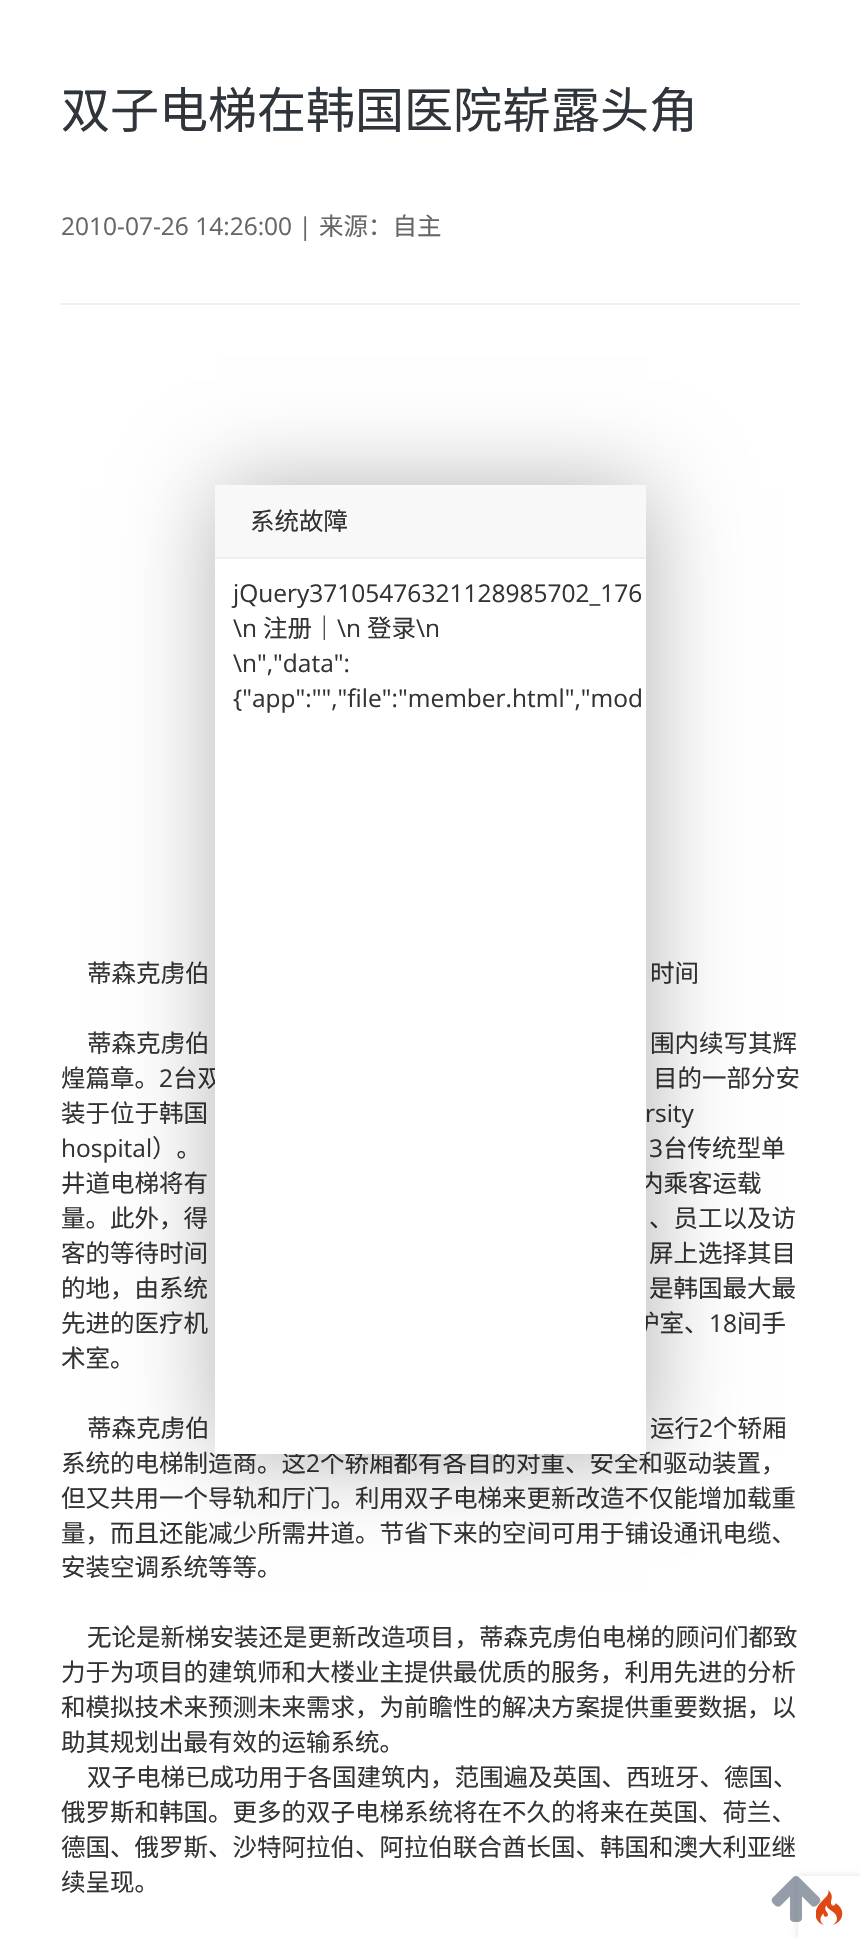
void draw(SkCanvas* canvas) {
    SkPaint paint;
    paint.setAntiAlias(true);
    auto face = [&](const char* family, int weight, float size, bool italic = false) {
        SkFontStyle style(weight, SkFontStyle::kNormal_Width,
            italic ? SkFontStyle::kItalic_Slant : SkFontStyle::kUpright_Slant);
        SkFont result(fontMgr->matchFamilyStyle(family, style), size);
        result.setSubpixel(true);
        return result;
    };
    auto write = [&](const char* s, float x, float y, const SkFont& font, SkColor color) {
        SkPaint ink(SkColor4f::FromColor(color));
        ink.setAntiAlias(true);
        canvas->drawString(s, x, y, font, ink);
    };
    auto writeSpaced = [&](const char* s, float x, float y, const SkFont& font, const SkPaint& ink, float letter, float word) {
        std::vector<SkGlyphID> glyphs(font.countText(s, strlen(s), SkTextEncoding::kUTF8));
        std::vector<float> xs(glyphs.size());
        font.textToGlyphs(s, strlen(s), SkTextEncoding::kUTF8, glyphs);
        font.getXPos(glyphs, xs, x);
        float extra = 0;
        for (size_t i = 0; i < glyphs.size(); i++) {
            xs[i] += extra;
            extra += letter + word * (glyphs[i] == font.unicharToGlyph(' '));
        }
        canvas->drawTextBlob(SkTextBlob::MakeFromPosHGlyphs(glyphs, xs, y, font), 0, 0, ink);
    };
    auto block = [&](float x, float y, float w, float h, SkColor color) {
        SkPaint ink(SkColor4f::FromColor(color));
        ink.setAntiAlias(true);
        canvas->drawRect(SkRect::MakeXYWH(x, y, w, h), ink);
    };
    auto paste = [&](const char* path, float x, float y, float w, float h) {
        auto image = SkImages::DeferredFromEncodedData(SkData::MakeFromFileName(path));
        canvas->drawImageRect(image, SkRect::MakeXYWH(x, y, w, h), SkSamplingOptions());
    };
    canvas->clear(SK_ColorWHITE);
    block(61, 303, 739, 2, SkColorSetRGB(238, 238, 238));
    auto kFont1 = face("Noto Sans CJK SC", 400, 49);
    write("双子电梯在韩国医院崭露头角", 61, 128, kFont1, SkColorSetRGB(47, 53, 59));
    auto kFont2 = face("Open Sans", 400, 24.5f);
    write("2010-07-26 14:26:00 |", 61, 235, kFont2, SkColorSetRGB(102, 102, 102));
    auto kFont3 = face("Noto Sans CJK SC", 400, 24.5f);
    write("来源：自主", 319, 235, kFont3, SkColorSetRGB(102, 102, 102));
    write("蒂森克虏伯", 87, 982, kFont3, SkColorSetRGB(51, 51, 51));
    write("时间", 650, 982, kFont3, SkColorSetRGB(51, 51, 51));
    write("蒂森克虏伯", 87, 1052, kFont3, SkColorSetRGB(51, 51, 51));
    write("围内续写其辉", 650, 1052, kFont3, SkColorSetRGB(51, 51, 51));
    write("煌篇章。", 61, 1087, kFont3, SkColorSetRGB(51, 51, 51));
    write("2", 159, 1087, kFont2, SkColorSetRGB(51, 51, 51));
    write("台双", 173, 1087, kFont3, SkColorSetRGB(51, 51, 51));
    write("目的一部分安", 653, 1087, kFont3, SkColorSetRGB(51, 51, 51));
    write("装于位于韩国", 61, 1122, kFont3, SkColorSetRGB(51, 51, 51));
    write("rsity", 645, 1122, kFont2, SkColorSetRGB(51, 51, 51));
    write("hospital", 61, 1157, kFont2, SkColorSetRGB(51, 51, 51));
    paint.setColor(SkColorSetRGB(51, 51, 51));
    writeSpaced("）。", 152, 1157, kFont3, paint, 0, 1);
    write("3", 649, 1157, kFont2, SkColorSetRGB(51, 51, 51));
    write("台传统型单", 663, 1157, kFont3, SkColorSetRGB(51, 51, 51));
    write("井道电梯将有", 61, 1192, kFont3, SkColorSetRGB(51, 51, 51));
    write("内乘客运载", 639, 1192, kFont3, SkColorSetRGB(51, 51, 51));
    write("量。此外，得", 61, 1227, kFont3, SkColorSetRGB(51, 51, 51));
    write("、员工以及访", 649, 1227, kFont3, SkColorSetRGB(51, 51, 51));
    write("客的等待时间", 61, 1262, kFont3, SkColorSetRGB(51, 51, 51));
    write("屏上选择其目", 649, 1262, kFont3, SkColorSetRGB(51, 51, 51));
    write("的地，由系统", 61, 1297, kFont3, SkColorSetRGB(51, 51, 51));
    write("是韩国最大最", 649, 1297, kFont3, SkColorSetRGB(51, 51, 51));
    write("先进的医疗机", 61, 1332, kFont3, SkColorSetRGB(51, 51, 51));
    write("护室、", 635, 1332, kFont3, SkColorSetRGB(51, 51, 51));
    write("18", 709, 1332, kFont2, SkColorSetRGB(51, 51, 51));
    write("间手", 737, 1332, kFont3, SkColorSetRGB(51, 51, 51));
    write("术室。", 61, 1367, kFont3, SkColorSetRGB(51, 51, 51));
    write("蒂森克虏伯", 87, 1437, kFont3, SkColorSetRGB(51, 51, 51));
    write("运行", 650, 1437, kFont3, SkColorSetRGB(51, 51, 51));
    write("2", 699, 1437, kFont2, SkColorSetRGB(51, 51, 51));
    write("个轿厢", 713, 1437, kFont3, SkColorSetRGB(51, 51, 51));
    write("系统的电梯制造商。这", 61, 1472, kFont3, SkColorSetRGB(51, 51, 51));
    write("2", 306, 1472, kFont2, SkColorSetRGB(51, 51, 51));
    write("个轿厢都有各自的对重、安全和驱动装置，", 320, 1472, kFont3, SkColorSetRGB(51, 51, 51));
    write("但又共用一个导轨和厅门。利用双子电梯来更新改造不仅能增加载重", 61, 1507, kFont3, SkColorSetRGB(51, 51, 51));
    write("量，而且还能减少所需井道。节省下来的空间可用于铺设通讯电缆、", 61, 1542, kFont3, SkColorSetRGB(51, 51, 51));
    write("安装空调系统等等。", 61, 1576, kFont3, SkColorSetRGB(51, 51, 51));
    write("无论是新梯安装还是更新改造项目，蒂森克虏伯电梯的顾问们都致", 87, 1646, kFont3, SkColorSetRGB(51, 51, 51));
    write("力于为项目的建筑师和大楼业主提供最优质的服务，利用先进的分析", 61, 1681, kFont3, SkColorSetRGB(51, 51, 51));
    write("和模拟技术来预测未来需求，为前瞻性的解决方案提供重要数据，以", 61, 1716, kFont3, SkColorSetRGB(51, 51, 51));
    write("助其规划出最有效的运输系统。", 61, 1751, kFont3, SkColorSetRGB(51, 51, 51));
    write("双子电梯已成功用于各国建筑内，范围遍及英国、西班牙、德国、", 87, 1786, kFont3, SkColorSetRGB(51, 51, 51));
    write("俄罗斯和韩国。更多的双子电梯系统将在不久的将来在英国、荷兰、", 61, 1821, kFont3, SkColorSetRGB(51, 51, 51));
    write("德国、俄罗斯、沙特阿拉伯、阿拉伯联合酋长国、韩国和澳大利亚继", 61, 1856, kFont3, SkColorSetRGB(51, 51, 51));
    write("续呈现。", 61, 1891, kFont3, SkColorSetRGB(51, 51, 51));
    canvas->save();
    canvas->clipPath(SkPathBuilder(SkPathFillType::kEvenOdd).moveTo(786, 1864).lineTo(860, 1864).lineTo(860, 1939).lineTo(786, 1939).close().moveTo(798, 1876).lineTo(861, 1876).lineTo(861, 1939).lineTo(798, 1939).close().detach(), true);
    paint.setColor(SkColorSetRGB(223, 223, 223));
    paint.setMaskFilter(SkMaskFilter::MakeBlur(kNormal_SkBlurStyle, 3.5f));
    canvas->drawRect(SkRect::MakeXYWH(798, 1876, 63, 63), paint);
    paint.setMaskFilter(nullptr);
    canvas->restore();
    paste("pic2.png", 816, 1890, 27, 35);
    paste("pic1.png", 771, 1876, 50, 46);
    paint.setColor(SkColorSetARGB(77, 0, 0, 0));
    paint.setMaskFilter(SkMaskFilter::MakeBlur(kNormal_SkBlurStyle, 44));
    canvas->drawRect(SkRect::MakeXYWH(217, 487, 431, 969), paint);
    paint.setMaskFilter(nullptr);
    block(215, 559, 431, 895, SK_ColorWHITE);
    block(215, 485, 431, 72, SkColorSetRGB(248, 248, 248));
    block(215, 557, 431, 2, SkColorSetRGB(238, 238, 238));
    write("系统故障", 250, 530, kFont3, SkColorSetRGB(51, 51, 51));
    write("jQuery37105476321128985702_176", 233, 602, kFont2, SkColorSetRGB(51, 51, 51));
    write("\\n", 233, 637, kFont2, SkColorSetRGB(51, 51, 51));
    write("注册｜", 263, 637, kFont3, SkColorSetRGB(51, 51, 51));
    write("\\n", 337, 637, kFont2, SkColorSetRGB(51, 51, 51));
    write("登录", 367, 637, kFont3, SkColorSetRGB(51, 51, 51));
    write("\\n", 416, 637, kFont2, SkColorSetRGB(51, 51, 51));
    write("\\n\",\"data\":", 233, 672, kFont2, SkColorSetRGB(51, 51, 51));
    write("{\"app\":\"\",\"file\":\"member.html\",\"mod", 233, 707, kFont2, SkColorSetRGB(51, 51, 51));
}
